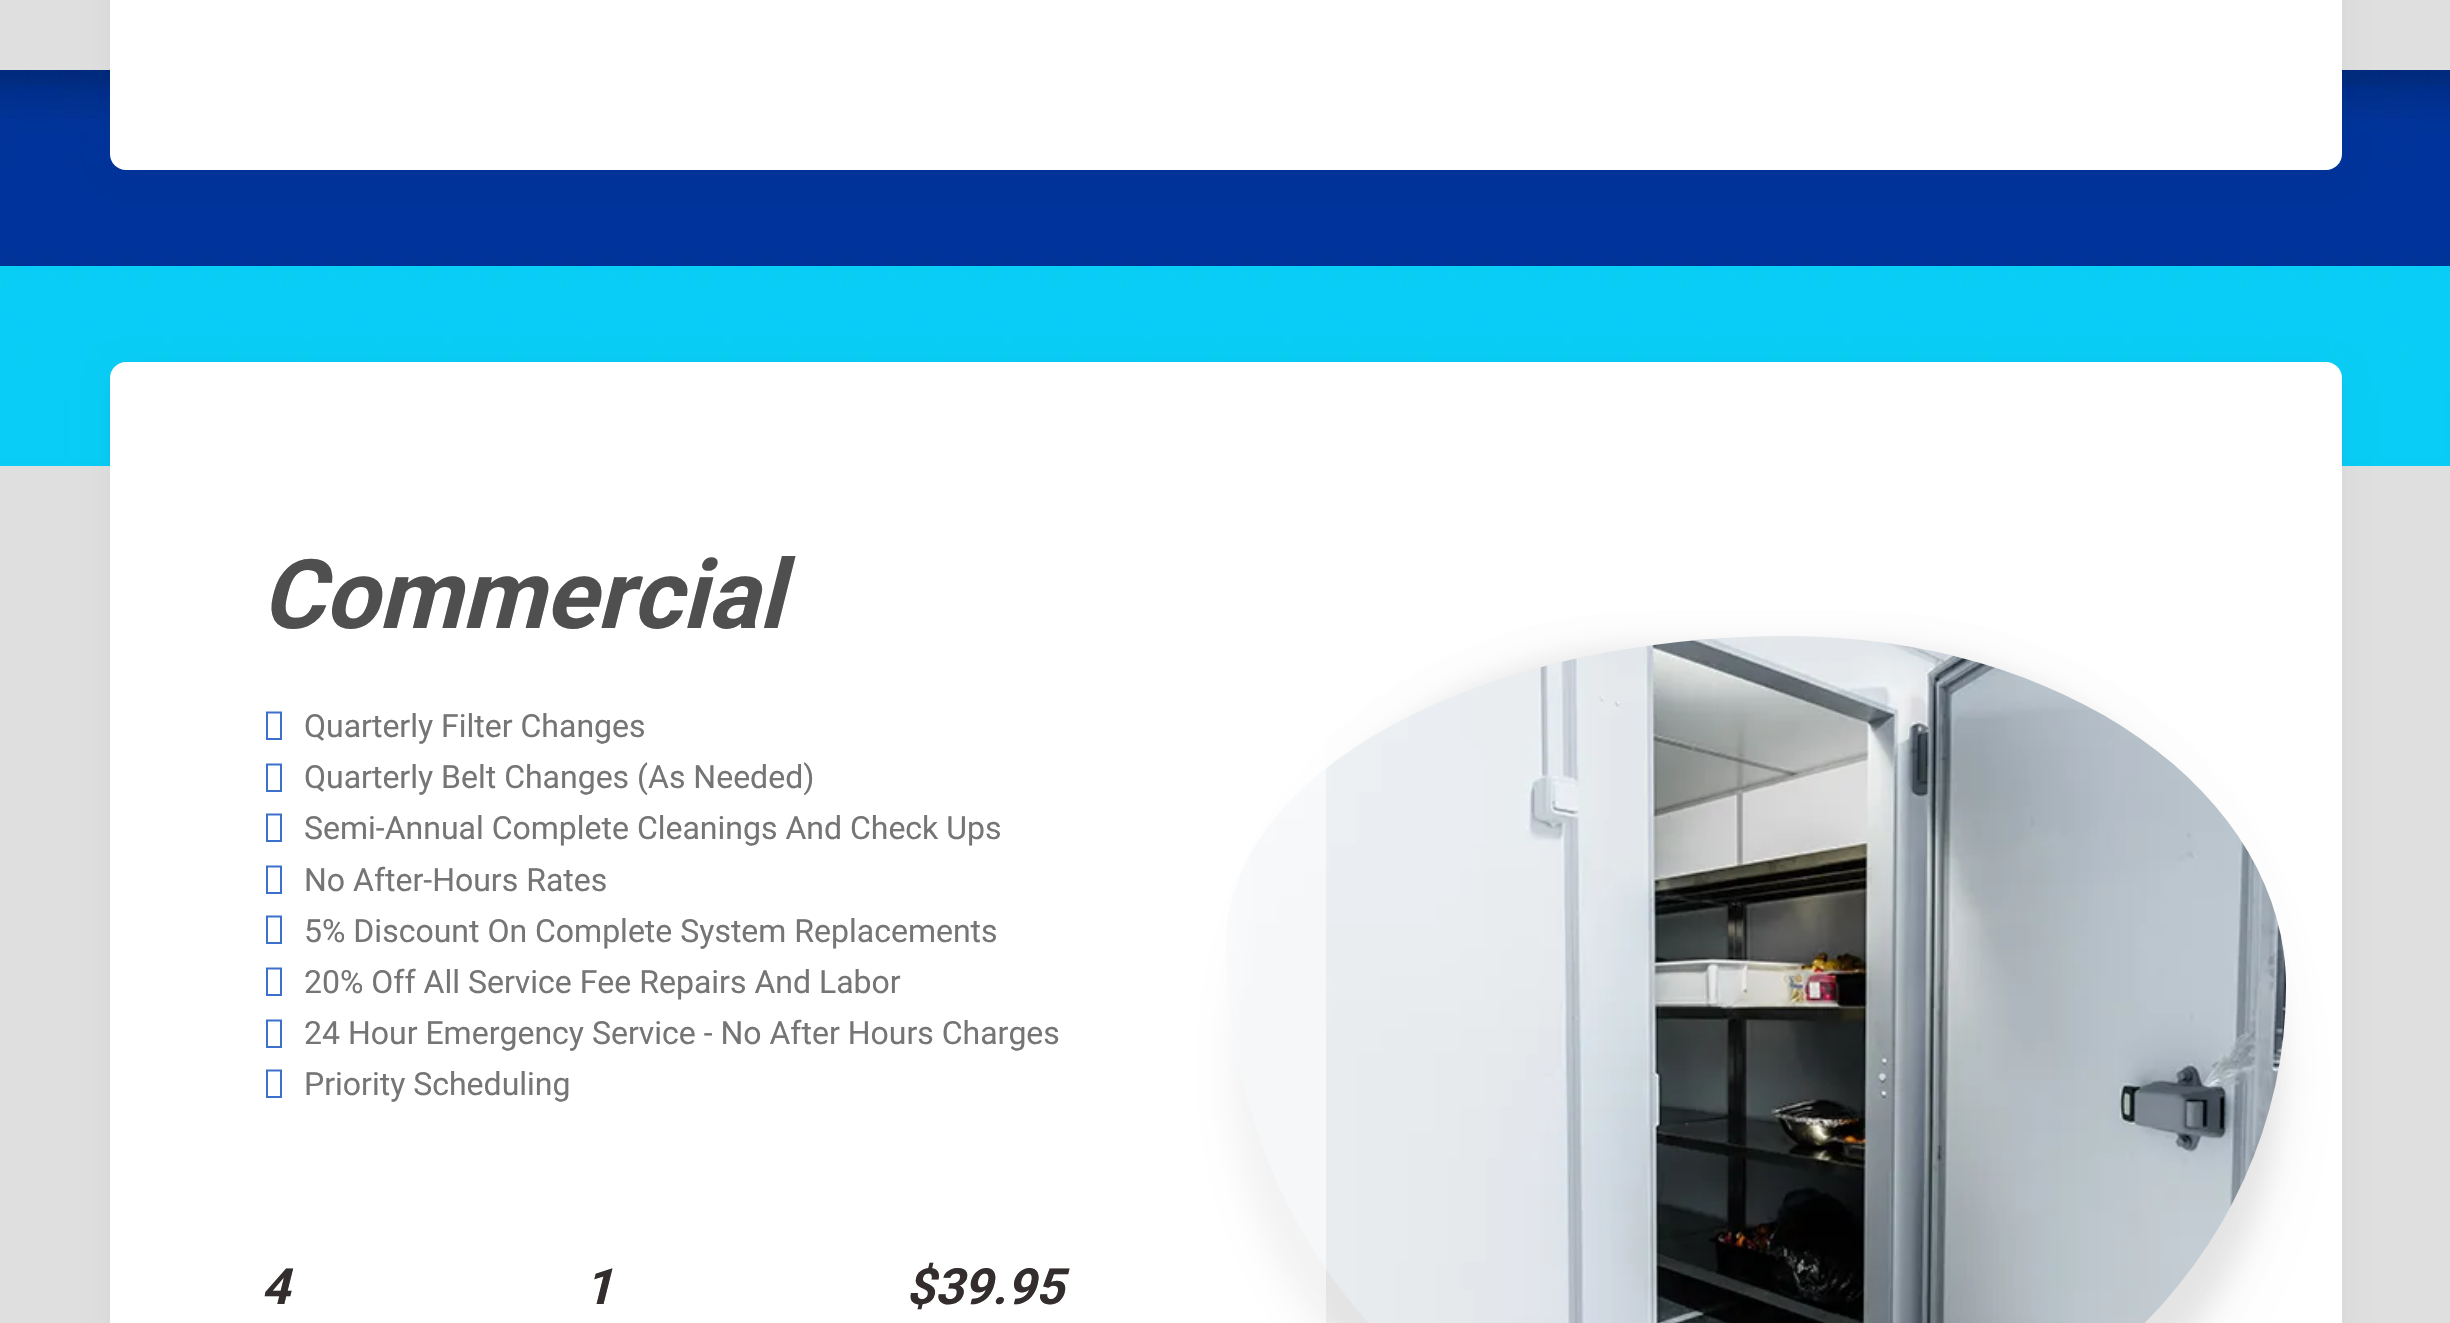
void draw(SkCanvas* canvas) {
    SkPaint paint;
    paint.setAntiAlias(true);
    auto face = [&](const char* family, int weight, float size, bool italic = false) {
        SkFontStyle style(weight, SkFontStyle::kNormal_Width,
            italic ? SkFontStyle::kItalic_Slant : SkFontStyle::kUpright_Slant);
        SkFont result(fontMgr->matchFamilyStyle(family, style), size);
        result.setSubpixel(true);
        return result;
    };
    auto write = [&](const char* s, float x, float y, const SkFont& font, SkColor color) {
        SkPaint ink(SkColor4f::FromColor(color));
        ink.setAntiAlias(true);
        canvas->drawString(s, x, y, font, ink);
    };
    auto card = [&](float x, float y, float w, float h, float radius, SkColor color) {
        SkPaint ink(SkColor4f::FromColor(color));
        ink.setAntiAlias(true);
        canvas->drawRoundRect(SkRect::MakeXYWH(x, y, w, h), radius, radius, ink);
    };
    auto paste = [&](const char* path, float x, float y, float w, float h) {
        auto image = SkImages::DeferredFromEncodedData(SkData::MakeFromFileName(path));
        canvas->drawImageRect(image, SkRect::MakeXYWH(x, y, w, h), SkSamplingOptions());
    };
    canvas->clear(SkColorSetRGB(223, 223, 223));
    paste("pic1.png", 0, 70, 2450, 196);
    paint.setColor(SkColorSetARGB(18, 0, 0, 0));
    paint.setMaskFilter(SkMaskFilter::MakeBlur(kNormal_SkBlurStyle, 15));
    canvas->drawRoundRect(SkRect::MakeXYWH(116, -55, 2220, 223), 10, 10, paint);
    paint.setMaskFilter(nullptr);
    card(110, -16, 2232, 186, 16, SK_ColorWHITE);
    paste("pic2.png", 0, 266, 2450, 200);
    paint.setMaskFilter(SkMaskFilter::MakeBlur(kNormal_SkBlurStyle, 15));
    canvas->drawRoundRect(SkRect::MakeXYWH(116, 372, 2220, 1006), 10, 10, paint);
    paint.setMaskFilter(nullptr);
    card(110, 362, 2232, 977, 16, SK_ColorWHITE);
    paint.setColor(SkColorSetARGB(10, 0, 0, 0));
    paint.setMaskFilter(SkMaskFilter::MakeBlur(kNormal_SkBlurStyle, 20));
    canvas->drawRoundRect(SkRect::MakeXYWH(1230, 660, 1052, 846), 504, 504, paint);
    paint.setMaskFilter(nullptr);
    paint.setColor(SkColorSetARGB(18, 0, 0, 0));
    paint.setMaskFilter(SkMaskFilter::MakeBlur(kNormal_SkBlurStyle, 15));
    canvas->drawRoundRect(SkRect::MakeXYWH(1232, 646, 1048, 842), 502, 502, paint);
    paint.setMaskFilter(nullptr);
    paste("pic3.png", 1226, 636, 1060, 687);
    card(166, 442, 1160, 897, 16, SkColorSetARGB(140, 255, 255, 255));
    auto kFont1 = face("Roboto", 700, 96, true);
    write("Commercial", 261, 628, kFont1, SkColorSetRGB(79, 79, 79));
    paint.setColor(SkColorSetRGB(59, 113, 202));
    canvas->drawPath(SkPathBuilder().moveTo(266, 740).lineTo(266, 711.5f).lineTo(282, 711.5f).lineTo(282, 740).close().moveTo(268, 738).lineTo(280, 738).lineTo(280, 713.5f).lineTo(268, 713.5f).close().detach(), paint);
    auto kFont2 = face("Roboto", 400, 32);
    write("Quarterly Filter Changes", 304, 737, kFont2, SkColorSetRGB(117, 117, 117));
    canvas->drawPath(SkPathBuilder().moveTo(266, 792).lineTo(266, 763.5f).lineTo(282, 763.5f).lineTo(282, 792).close().moveTo(268, 790).lineTo(280, 790).lineTo(280, 765.5f).lineTo(268, 765.5f).close().detach(), paint);
    write("Quarterly Belt Changes (As Needed)", 304, 788, kFont2, SkColorSetRGB(117, 117, 117));
    canvas->drawPath(SkPathBuilder().moveTo(266, 842).lineTo(266, 813.5f).lineTo(282, 813.5f).lineTo(282, 842).close().moveTo(268, 840).lineTo(280, 840).lineTo(280, 815.5f).lineTo(268, 815.5f).close().detach(), paint);
    write("Semi-Annual Complete Cleanings And Check Ups", 304, 839, kFont2, SkColorSetRGB(117, 117, 117));
    canvas->drawPath(SkPathBuilder().moveTo(266, 894).lineTo(266, 865.5f).lineTo(282, 865.5f).lineTo(282, 894).close().moveTo(268, 892).lineTo(280, 892).lineTo(280, 867.5f).lineTo(268, 867.5f).close().detach(), paint);
    write("No After-Hours Rates", 304, 891, kFont2, SkColorSetRGB(117, 117, 117));
    canvas->drawPath(SkPathBuilder().moveTo(266, 944).lineTo(266, 915.5f).lineTo(282, 915.5f).lineTo(282, 944).close().moveTo(268, 942).lineTo(280, 942).lineTo(280, 917.5f).lineTo(268, 917.5f).close().detach(), paint);
    write("5% Discount On Complete System Replacements", 304, 942, kFont2, SkColorSetRGB(117, 117, 117));
    canvas->drawPath(SkPathBuilder().moveTo(266, 996).lineTo(266, 967.5f).lineTo(282, 967.5f).lineTo(282, 996).close().moveTo(268, 994).lineTo(280, 994).lineTo(280, 969.5f).lineTo(268, 969.5f).close().detach(), paint);
    write("20% Off All Service Fee Repairs And Labor", 304, 993, kFont2, SkColorSetRGB(117, 117, 117));
    canvas->drawPath(SkPathBuilder().moveTo(266, 1048).lineTo(266, 1019.5f).lineTo(282, 1019.5f).lineTo(282, 1048).close().moveTo(268, 1046).lineTo(280, 1046).lineTo(280, 1021.5f).lineTo(268, 1021.5f).close().detach(), paint);
    write("24 Hour Emergency Service - No After Hours Charges", 304, 1044, kFont2, SkColorSetRGB(117, 117, 117));
    canvas->drawPath(SkPathBuilder().moveTo(266, 1098).lineTo(266, 1069.5f).lineTo(282, 1069.5f).lineTo(282, 1098).close().moveTo(268, 1096).lineTo(280, 1096).lineTo(280, 1071.5f).lineTo(268, 1071.5f).close().detach(), paint);
    write("Priority Scheduling", 304, 1095, kFont2, SkColorSetRGB(117, 117, 117));
    auto kFont3 = face("Roboto", 700, 50, true);
    write("4", 261, 1304, kFont3, SkColorSetRGB(51, 45, 45));
    write("1", 584, 1304, kFont3, SkColorSetRGB(51, 45, 45));
    write("$39.95", 906, 1304, kFont3, SkColorSetRGB(51, 45, 45));
}
